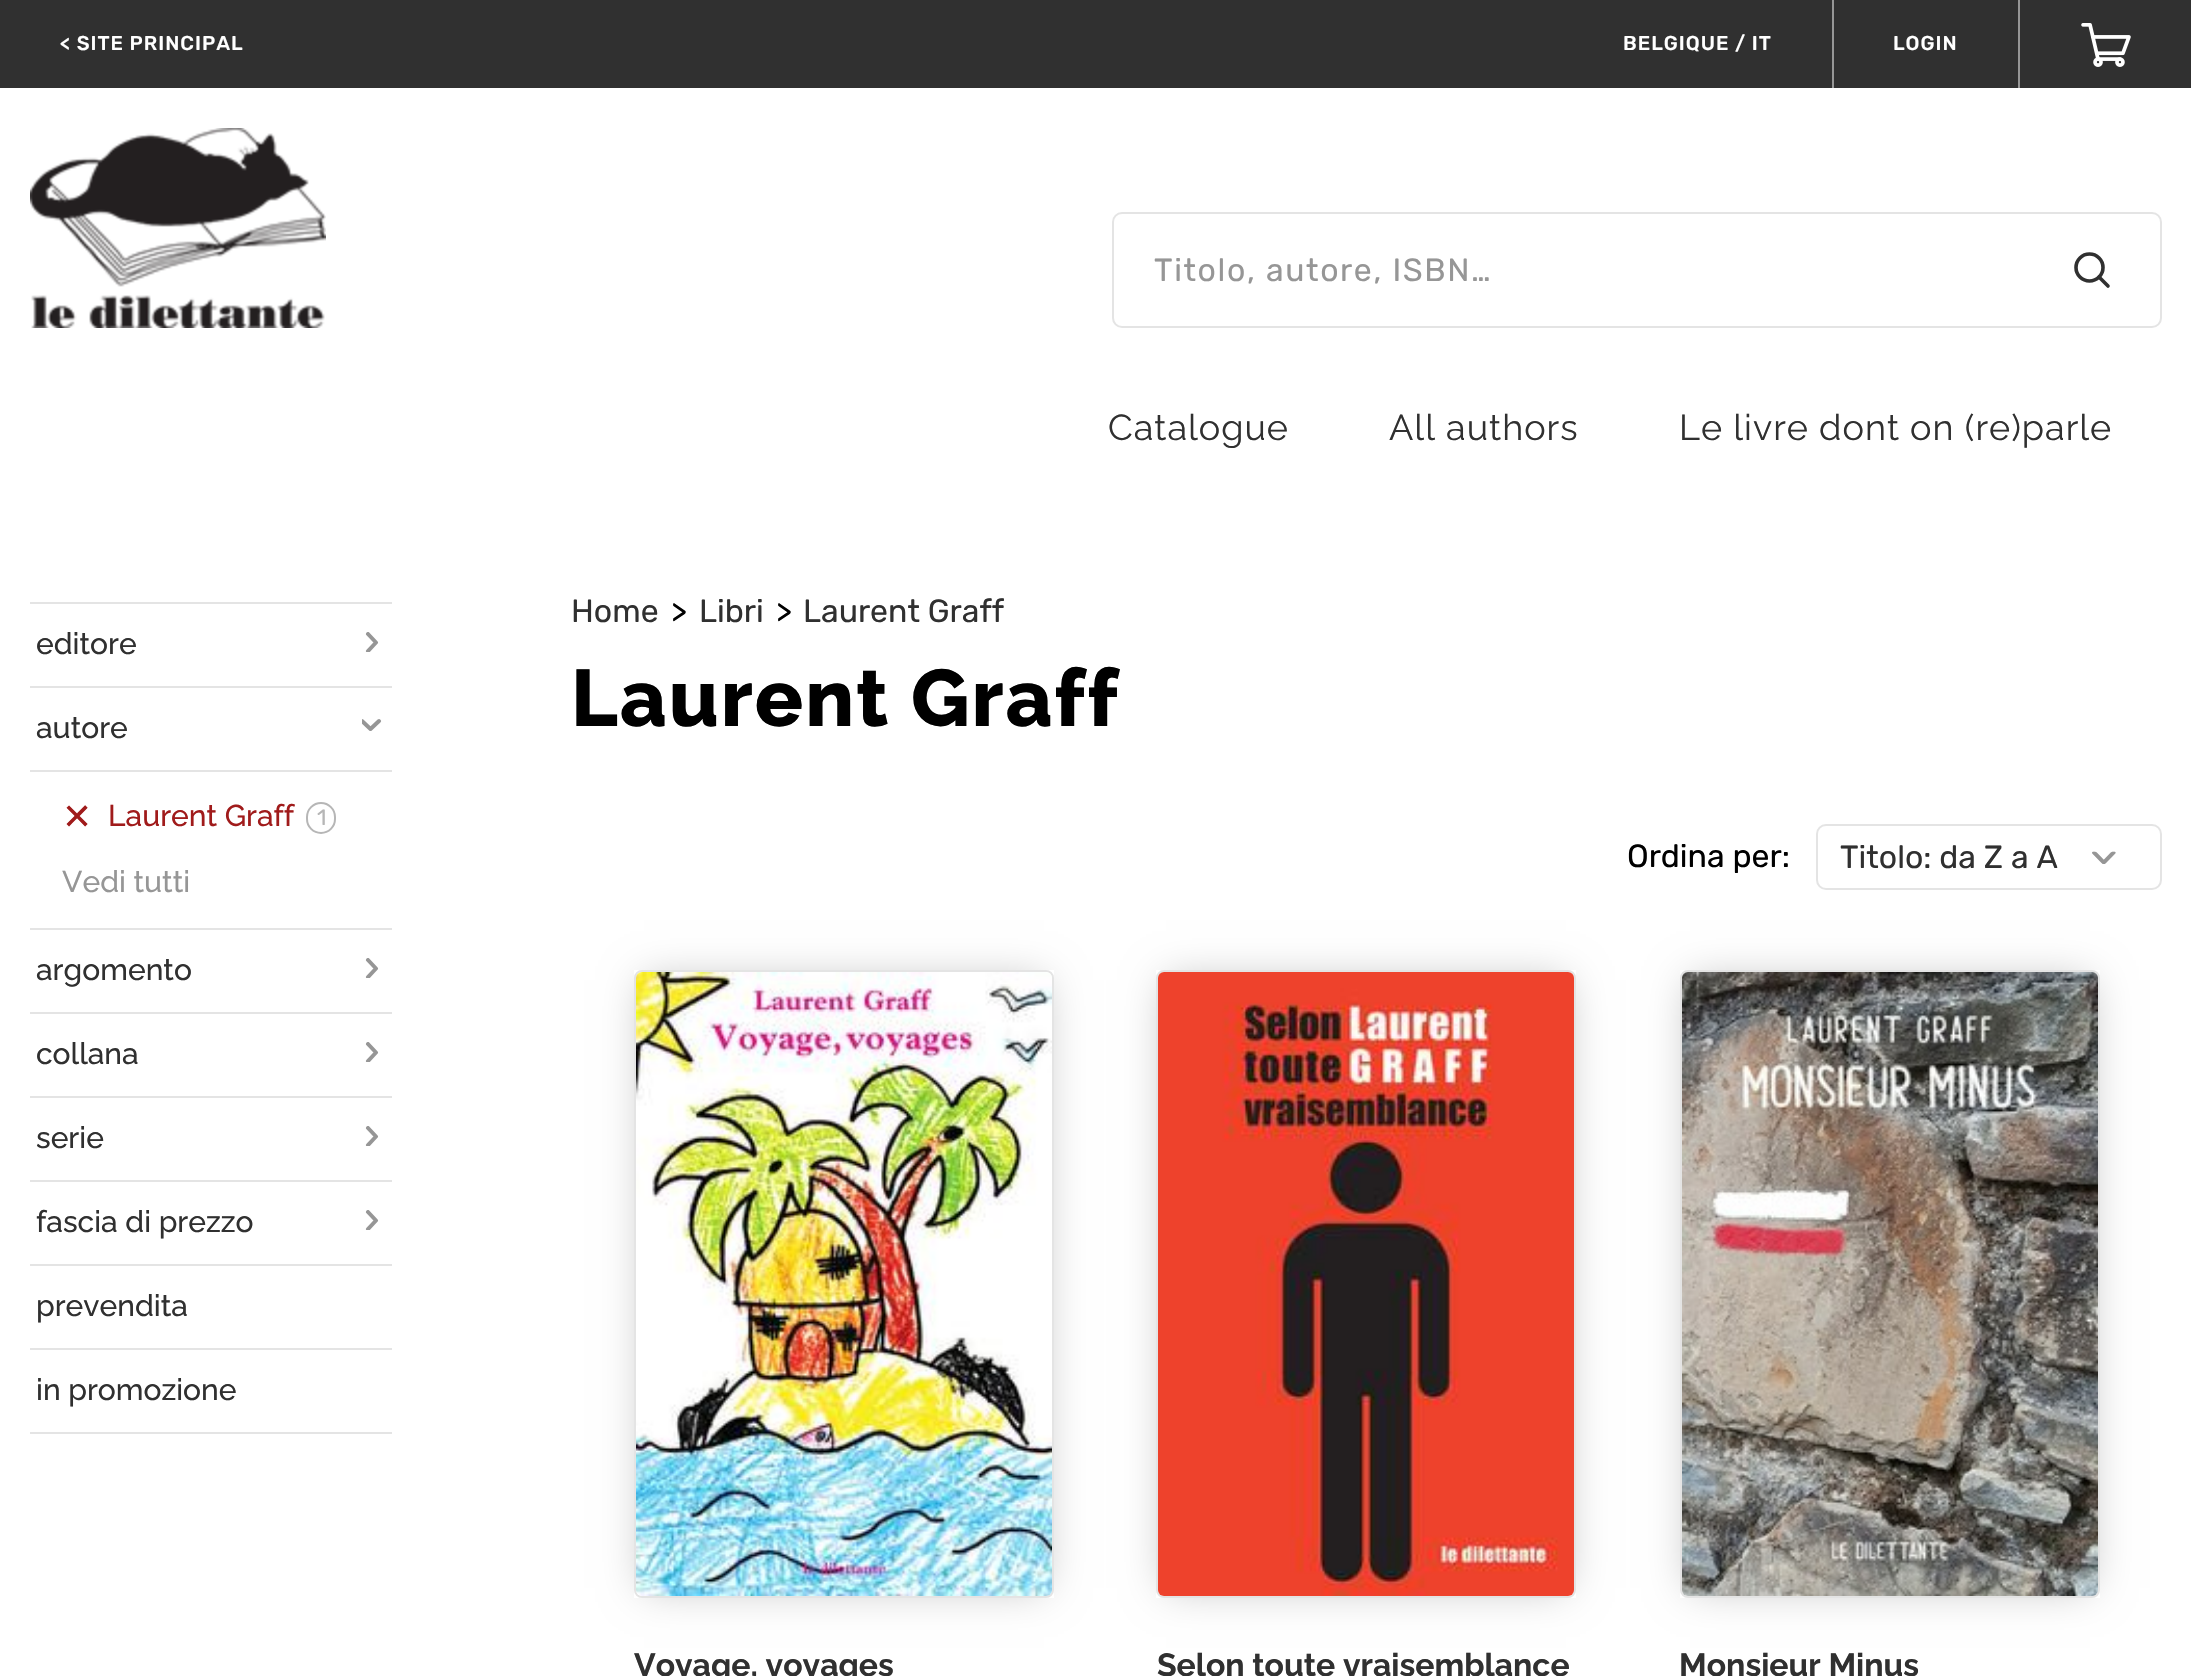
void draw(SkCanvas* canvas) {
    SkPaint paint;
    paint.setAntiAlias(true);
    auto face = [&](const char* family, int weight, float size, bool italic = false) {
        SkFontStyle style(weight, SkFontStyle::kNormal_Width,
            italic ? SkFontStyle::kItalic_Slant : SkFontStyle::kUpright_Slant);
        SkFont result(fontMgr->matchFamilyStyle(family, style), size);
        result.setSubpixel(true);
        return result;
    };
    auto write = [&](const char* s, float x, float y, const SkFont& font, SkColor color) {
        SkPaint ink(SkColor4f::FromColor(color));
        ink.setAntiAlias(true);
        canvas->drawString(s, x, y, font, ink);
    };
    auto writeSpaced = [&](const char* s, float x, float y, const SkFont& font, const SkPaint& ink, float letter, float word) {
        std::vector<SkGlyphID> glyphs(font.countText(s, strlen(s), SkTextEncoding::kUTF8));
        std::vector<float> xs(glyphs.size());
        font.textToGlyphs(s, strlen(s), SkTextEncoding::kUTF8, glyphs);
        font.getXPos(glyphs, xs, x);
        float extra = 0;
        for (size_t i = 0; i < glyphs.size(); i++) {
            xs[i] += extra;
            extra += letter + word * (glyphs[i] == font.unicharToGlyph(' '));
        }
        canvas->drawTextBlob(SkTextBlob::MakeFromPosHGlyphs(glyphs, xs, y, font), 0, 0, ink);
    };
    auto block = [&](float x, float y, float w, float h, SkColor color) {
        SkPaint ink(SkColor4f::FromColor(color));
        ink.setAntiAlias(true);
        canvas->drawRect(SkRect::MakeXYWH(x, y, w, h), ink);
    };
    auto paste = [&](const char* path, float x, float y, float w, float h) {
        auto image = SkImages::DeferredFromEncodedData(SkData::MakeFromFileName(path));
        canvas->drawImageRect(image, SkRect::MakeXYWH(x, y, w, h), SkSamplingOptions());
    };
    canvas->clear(SK_ColorWHITE);
    block(0, 0, 2191, 88, SkColorSetRGB(48, 48, 48));
    auto kFont1 = face("Rubik", 500, 20);
    paint.setColor(SK_ColorWHITE);
    writeSpaced("< SITE PRINCIPAL", 60, 50, kFont1, paint, 1, 0);
    writeSpaced("BELGIQUE / IT", 1623, 50, kFont1, paint, 1, 0);
    block(1832, 0, 2, 88, SkColorSetRGB(150, 150, 150));
    writeSpaced("LOGIN", 1893, 50, kFont1, paint, 1, 0);
    block(2018, 0, 2, 88, SkColorSetRGB(150, 150, 150));
    paste("pic1.png", 2081, 23, 50, 44);
    paste("pic2.png", 30, 128, 296, 200);
    paint.setStyle(SkPaint::kStroke_Style);
    paint.setStrokeWidth(2);
    paint.setColor(SkColorSetRGB(228, 228, 228));
    canvas->drawRoundRect(SkRect::MakeXYWH(1113, 213, 1048, 114), 9, 9, paint);
    auto kFont2 = face("Rubik", 400, 32);
    paint.setStyle(SkPaint::kFill_Style);
    paint.setColor(SkColorSetRGB(150, 150, 150));
    writeSpaced("Titolo, autore, ISBN…", 1154, 281, kFont2, paint, 1.6f, 0);
    paint.setStyle(SkPaint::kStroke_Style);
    paint.setStrokeWidth(3.6f);
    paint.setColor(SkColorSetRGB(48, 48, 48));
    canvas->drawCircle(2089.5f, 267.5f, 13.5f, paint);
    paint.setStrokeCap(SkPaint::kRound_Cap);
    paint.setStrokeJoin(SkPaint::kRound_Join);
    canvas->drawPath(SkPathBuilder().moveTo(2108, 286).lineTo(2099, 277).detach(), paint);
    auto kFont3 = face("Raleway", 400, 36);
    paint.setStyle(SkPaint::kFill_Style);
    writeSpaced("Catalogue", 1108, 440, kFont3, paint, 1, 0);
    writeSpaced("All authors", 1389, 440, kFont3, paint, 1, 0);
    writeSpaced("Le livre dont on (re)parle", 1679, 440, kFont3, paint, 1, 0);
    block(30, 602, 362, 2, SkColorSetRGB(228, 228, 228));
    block(30, 686, 362, 2, SkColorSetRGB(228, 228, 228));
    auto kFont4 = face("Raleway", 500, 30);
    write("editore", 36, 654, kFont4, SkColorSetRGB(48, 48, 48));
    canvas->save();
    canvas->clipRect(SkRect::MakeXYWH(362, 632, 20, 20));
    paint.setStyle(SkPaint::kStroke_Style);
    paint.setStrokeWidth(4);
    paint.setColor(SkColorSetRGB(150, 150, 150));
    canvas->drawPath(SkPathBuilder().moveTo(368, 634).lineTo(376, 642.5f).lineTo(368, 651).detach(), paint);
    canvas->restore();
    block(30, 770, 362, 2, SkColorSetRGB(228, 228, 228));
    write("autore", 36, 738, kFont4, SkColorSetRGB(48, 48, 48));
    canvas->save();
    canvas->clipPath(SkPathBuilder().moveTo(382, 715).lineTo(382, 735).lineTo(362, 735).lineTo(362, 715).close().detach(), true);
    canvas->drawPath(SkPathBuilder().moveTo(379, 721).lineTo(370.5f, 729).lineTo(362, 721).detach(), paint);
    canvas->restore();
    block(30, 928, 362, 2, SkColorSetRGB(228, 228, 228));
    auto kFont5 = face("DejaVu Sans", 400, 36);
    write("✕", 62, 829, kFont5, SkColorSetRGB(160, 27, 27));
    write("Laurent Graff", 108, 826, kFont4, SkColorSetRGB(160, 27, 27));
    paint.setStrokeWidth(2);
    paint.setStrokeCap(SkPaint::kButt_Cap);
    paint.setStrokeJoin(SkPaint::kMiter_Join);
    paint.setColor(SkColorSetRGB(182, 182, 182));
    canvas->drawRoundRect(SkRect::MakeXYWH(307, 803, 28, 30), 14, 14, paint);
    auto kFont6 = face("Rubik", 400, 22);
    write("1", 317, 825, kFont6, SkColorSetRGB(182, 182, 182));
    write("Vedi tutti", 62, 892, kFont4, SkColorSetRGB(150, 150, 150));
    block(30, 1012, 362, 2, SkColorSetRGB(228, 228, 228));
    write("argomento", 36, 980, kFont4, SkColorSetRGB(48, 48, 48));
    canvas->save();
    canvas->clipRect(SkRect::MakeXYWH(362, 958, 20, 20));
    paint.setStrokeWidth(4);
    paint.setStrokeCap(SkPaint::kRound_Cap);
    paint.setStrokeJoin(SkPaint::kRound_Join);
    paint.setColor(SkColorSetRGB(150, 150, 150));
    canvas->drawPath(SkPathBuilder().moveTo(368, 960).lineTo(376, 968.5f).lineTo(368, 977).detach(), paint);
    canvas->restore();
    block(30, 1096, 362, 2, SkColorSetRGB(228, 228, 228));
    write("collana", 36, 1064, kFont4, SkColorSetRGB(48, 48, 48));
    canvas->save();
    canvas->clipRect(SkRect::MakeXYWH(362, 1042, 20, 20));
    canvas->drawPath(SkPathBuilder().moveTo(368, 1044).lineTo(376, 1052.5f).lineTo(368, 1061).detach(), paint);
    canvas->restore();
    block(30, 1180, 362, 2, SkColorSetRGB(228, 228, 228));
    write("serie", 36, 1148, kFont4, SkColorSetRGB(48, 48, 48));
    canvas->save();
    canvas->clipRect(SkRect::MakeXYWH(362, 1126, 20, 20));
    canvas->drawPath(SkPathBuilder().moveTo(368, 1128).lineTo(376, 1136.5f).lineTo(368, 1145).detach(), paint);
    canvas->restore();
    block(30, 1264, 362, 2, SkColorSetRGB(228, 228, 228));
    write("fascia di prezzo", 36, 1232, kFont4, SkColorSetRGB(48, 48, 48));
    canvas->save();
    canvas->clipRect(SkRect::MakeXYWH(362, 1210, 20, 20));
    canvas->drawPath(SkPathBuilder().moveTo(368, 1212).lineTo(376, 1220.5f).lineTo(368, 1229).detach(), paint);
    canvas->restore();
    block(30, 1348, 362, 2, SkColorSetRGB(228, 228, 228));
    write("prevendita", 36, 1316, kFont4, SkColorSetRGB(48, 48, 48));
    block(30, 1432, 362, 2, SkColorSetRGB(228, 228, 228));
    write("in promozione", 36, 1400, kFont4, SkColorSetRGB(48, 48, 48));
    write("Home", 571, 622, kFont2, SkColorSetRGB(48, 48, 48));
    write(">", 671, 622, kFont2, SK_ColorBLACK);
    write("Libri", 699, 622, kFont2, SkColorSetRGB(48, 48, 48));
    write(">", 776, 622, kFont2, SK_ColorBLACK);
    write("Laurent Graff", 803, 622, kFont2, SkColorSetRGB(48, 48, 48));
    auto kFont7 = face("Raleway", 800, 80);
    paint.setStyle(SkPaint::kFill_Style);
    paint.setColor(SK_ColorBLACK);
    writeSpaced("Laurent Graff", 571, 726, kFont7, paint, 2, 0);
    write("Ordina per:", 1627, 867, kFont2, SK_ColorBLACK);
    paint.setStyle(SkPaint::kStroke_Style);
    paint.setStrokeWidth(2);
    paint.setStrokeCap(SkPaint::kButt_Cap);
    paint.setStrokeJoin(SkPaint::kMiter_Join);
    paint.setColor(SkColorSetRGB(228, 228, 228));
    canvas->drawRoundRect(SkRect::MakeXYWH(1817, 825, 344, 64), 9, 9, paint);
    write("Titolo: da Z a A", 1840, 868, kFont2, SkColorSetRGB(48, 48, 48));
    auto kFont8 = face("Rubik", 400, 48);
    canvas->save();
    canvas->rotate(90, 2088, 849);
    write("›", 2088, 849, kFont8, SkColorSetRGB(150, 150, 150));
    canvas->restore();
    canvas->save();
    canvas->clipPath(SkPathBuilder(SkPathFillType::kEvenOdd).moveTo(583, 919).lineTo(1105, 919).lineTo(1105, 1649).lineTo(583, 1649).close().moveTo(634, 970).lineTo(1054, 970).lineTo(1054, 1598).lineTo(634, 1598).close().detach(), true);
    paint.setStyle(SkPaint::kFill_Style);
    paint.setColor(SkColorSetARGB(64, 0, 0, 0));
    paint.setMaskFilter(SkMaskFilter::MakeBlur(kNormal_SkBlurStyle, 20));
    canvas->drawRect(SkRect::MakeXYWH(644, 980, 400, 608), paint);
    paint.setMaskFilter(nullptr);
    canvas->restore();
    paint.setStyle(SkPaint::kStroke_Style);
    paint.setColor(SkColorSetRGB(228, 228, 228));
    canvas->drawRoundRect(SkRect::MakeXYWH(635, 971, 418, 626), 7, 7, paint);
    paste("pic3.png", 636, 972, 416, 624);
    auto kFont9 = face("Raleway", 700, 32);
    write("Voyage, voyages", 634, 1676, kFont9, SkColorSetRGB(48, 48, 48));
    canvas->save();
    canvas->clipPath(SkPathBuilder(SkPathFillType::kEvenOdd).moveTo(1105, 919).lineTo(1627, 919).lineTo(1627, 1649).lineTo(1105, 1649).close().moveTo(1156, 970).lineTo(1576, 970).lineTo(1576, 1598).lineTo(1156, 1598).close().detach(), true);
    paint.setStyle(SkPaint::kFill_Style);
    paint.setColor(SkColorSetARGB(64, 0, 0, 0));
    paint.setMaskFilter(SkMaskFilter::MakeBlur(kNormal_SkBlurStyle, 20));
    canvas->drawRect(SkRect::MakeXYWH(1166, 980, 400, 608), paint);
    paint.setMaskFilter(nullptr);
    canvas->restore();
    paint.setStyle(SkPaint::kStroke_Style);
    paint.setColor(SkColorSetRGB(228, 228, 228));
    canvas->drawRoundRect(SkRect::MakeXYWH(1157, 971, 418, 626), 7, 7, paint);
    paste("pic4.png", 1158, 972, 416, 624);
    write("Selon toute vraisemblance", 1157, 1676, kFont9, SkColorSetRGB(48, 48, 48));
    canvas->save();
    canvas->clipPath(SkPathBuilder(SkPathFillType::kEvenOdd).moveTo(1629, 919).lineTo(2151, 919).lineTo(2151, 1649).lineTo(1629, 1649).close().moveTo(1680, 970).lineTo(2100, 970).lineTo(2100, 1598).lineTo(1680, 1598).close().detach(), true);
    paint.setStyle(SkPaint::kFill_Style);
    paint.setColor(SkColorSetARGB(64, 0, 0, 0));
    paint.setMaskFilter(SkMaskFilter::MakeBlur(kNormal_SkBlurStyle, 20));
    canvas->drawRect(SkRect::MakeXYWH(1690, 980, 400, 608), paint);
    paint.setMaskFilter(nullptr);
    canvas->restore();
    paint.setStyle(SkPaint::kStroke_Style);
    paint.setColor(SkColorSetRGB(228, 228, 228));
    canvas->drawRoundRect(SkRect::MakeXYWH(1681, 971, 418, 626), 7, 7, paint);
    paste("pic5.png", 1682, 972, 416, 624);
    write("Monsieur Minus", 1679, 1676, kFont9, SkColorSetRGB(48, 48, 48));
}
